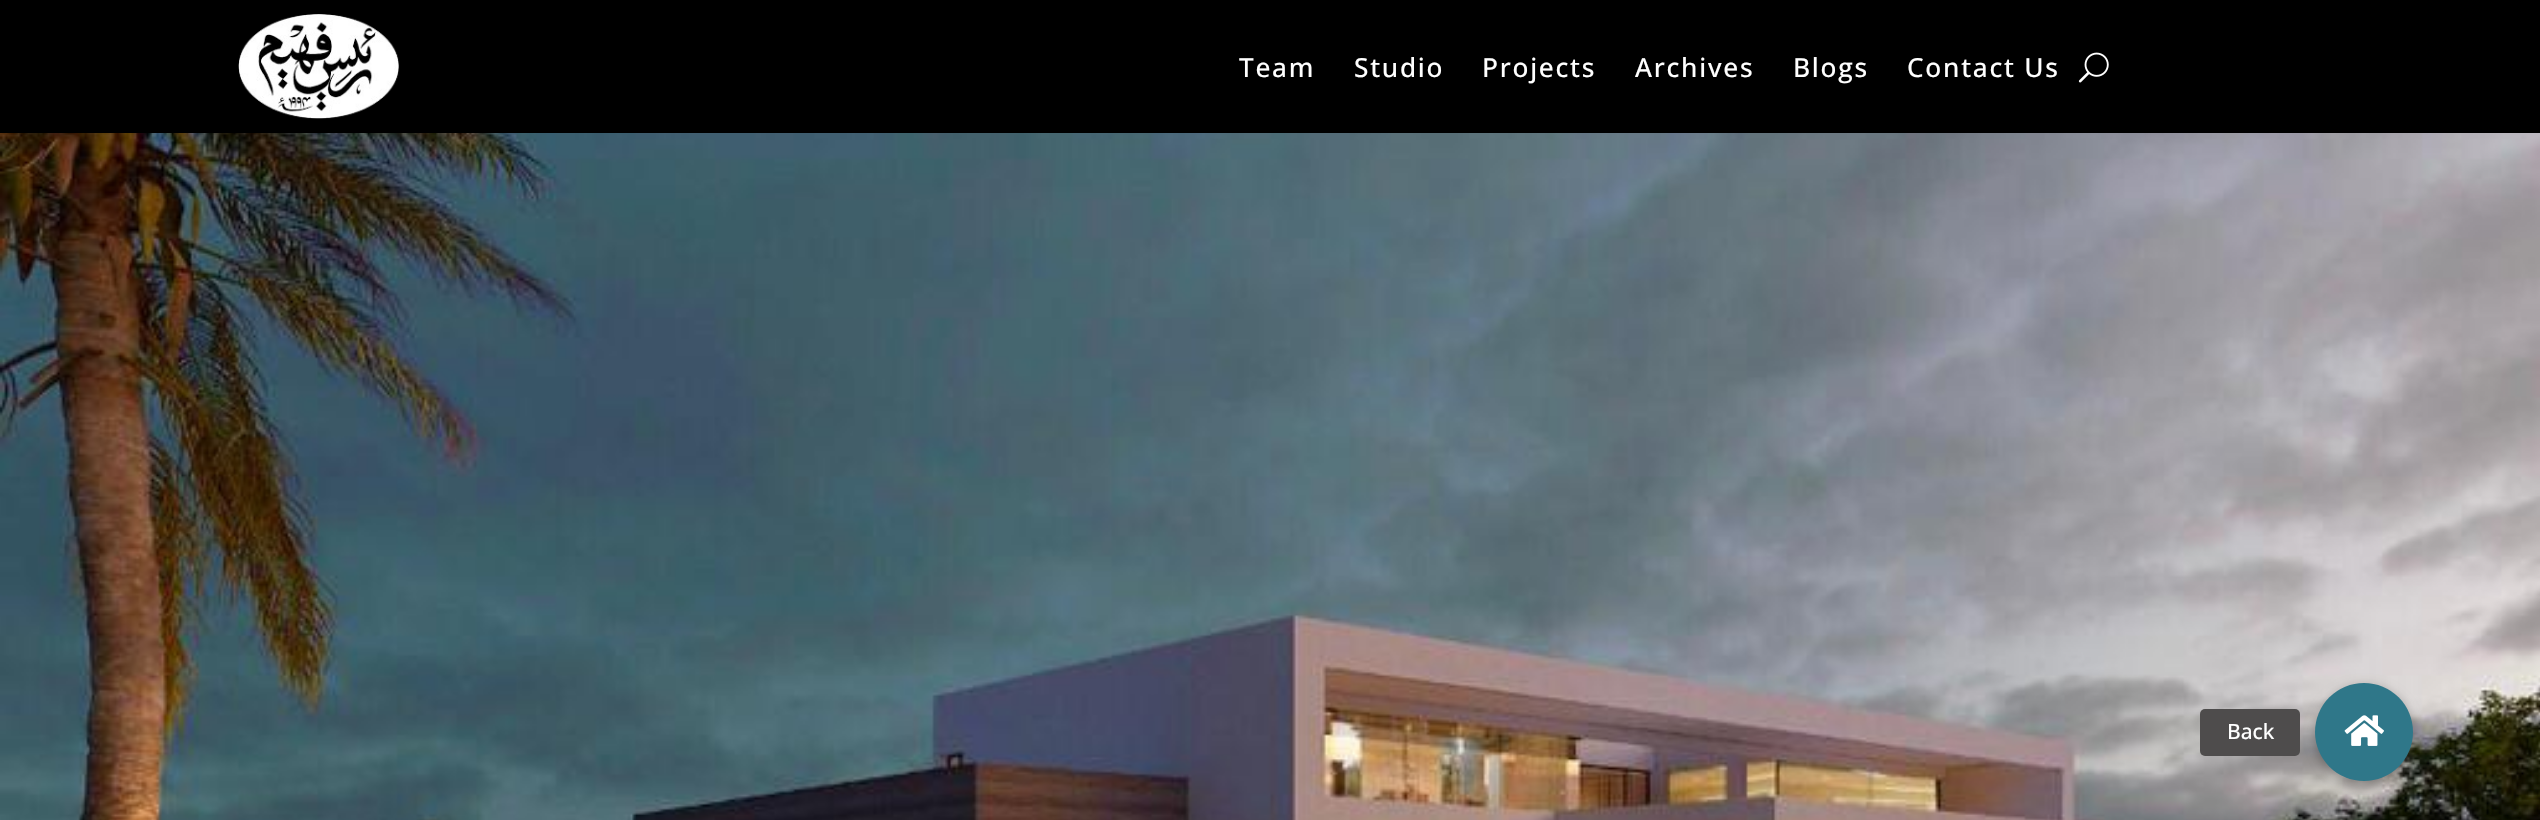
void draw(SkCanvas* canvas) {
    SkPaint paint;
    paint.setAntiAlias(true);
    auto face = [&](const char* family, int weight, float size, bool italic = false) {
        SkFontStyle style(weight, SkFontStyle::kNormal_Width,
            italic ? SkFontStyle::kItalic_Slant : SkFontStyle::kUpright_Slant);
        SkFont result(fontMgr->matchFamilyStyle(family, style), size);
        result.setSubpixel(true);
        return result;
    };
    auto write = [&](const char* s, float x, float y, const SkFont& font, SkColor color) {
        SkPaint ink(SkColor4f::FromColor(color));
        ink.setAntiAlias(true);
        canvas->drawString(s, x, y, font, ink);
    };
    auto writeSpaced = [&](const char* s, float x, float y, const SkFont& font, const SkPaint& ink, float letter, float word) {
        std::vector<SkGlyphID> glyphs(font.countText(s, strlen(s), SkTextEncoding::kUTF8));
        std::vector<float> xs(glyphs.size());
        font.textToGlyphs(s, strlen(s), SkTextEncoding::kUTF8, glyphs);
        font.getXPos(glyphs, xs, x);
        float extra = 0;
        for (size_t i = 0; i < glyphs.size(); i++) {
            xs[i] += extra;
            extra += letter + word * (glyphs[i] == font.unicharToGlyph(' '));
        }
        canvas->drawTextBlob(SkTextBlob::MakeFromPosHGlyphs(glyphs, xs, y, font), 0, 0, ink);
    };
    auto block = [&](float x, float y, float w, float h, SkColor color) {
        SkPaint ink(SkColor4f::FromColor(color));
        ink.setAntiAlias(true);
        canvas->drawRect(SkRect::MakeXYWH(x, y, w, h), ink);
    };
    auto card = [&](float x, float y, float w, float h, float radius, SkColor color) {
        SkPaint ink(SkColor4f::FromColor(color));
        ink.setAntiAlias(true);
        canvas->drawRoundRect(SkRect::MakeXYWH(x, y, w, h), radius, radius, ink);
    };
    auto paste = [&](const char* path, float x, float y, float w, float h) {
        auto image = SkImages::DeferredFromEncodedData(SkData::MakeFromFileName(path));
        canvas->drawImageRect(image, SkRect::MakeXYWH(x, y, w, h), SkSamplingOptions());
    };
    canvas->clear(SK_ColorWHITE);
    block(0, 0, 2540, 133, SK_ColorBLACK);
    paste("pic1.png", 238, 14, 161, 105);
    auto kFont1 = face("Open Sans", 500, 26.25f);
    paint.setColor(SK_ColorWHITE);
    writeSpaced("Team", 1239, 77, kFont1, paint, 1.75f, 0);
    writeSpaced("Studio", 1354, 77, kFont1, paint, 1.75f, 0);
    writeSpaced("Projects", 1482, 77, kFont1, paint, 1.75f, 0);
    writeSpaced("Archives", 1635, 77, kFont1, paint, 1.75f, 0);
    writeSpaced("Blogs", 1793, 77, kFont1, paint, 1.75f, 0);
    writeSpaced("Contact Us", 1907, 77, kFont1, paint, 1.75f, 0);
    paste("pic2.png", 2078, 52, 31, 31);
    paste("pic3.png", 0, 133, 2540, 687);
    paint.setColor(SkColorSetARGB(51, 0, 0, 0));
    paint.setMaskFilter(SkMaskFilter::MakeBlur(kNormal_SkBlurStyle, 5));
    canvas->drawRoundRect(SkRect::MakeXYWH(2314, 684, 101, 102), 50.5f, 50.5f, paint);
    paint.setMaskFilter(nullptr);
    paint.setColor(SkColorSetRGB(47, 119, 137));
    canvas->drawCircle(2364, 732, 49, paint);
    card(2200, 709, 100, 47, 5, SkColorSetRGB(78, 76, 76));
    auto kFont2 = face("Open Sans", 500, 21);
    write("Back", 2227, 739, kFont2, SK_ColorWHITE);
    paste("pic4.png", 2344, 715, 40, 31);
}
